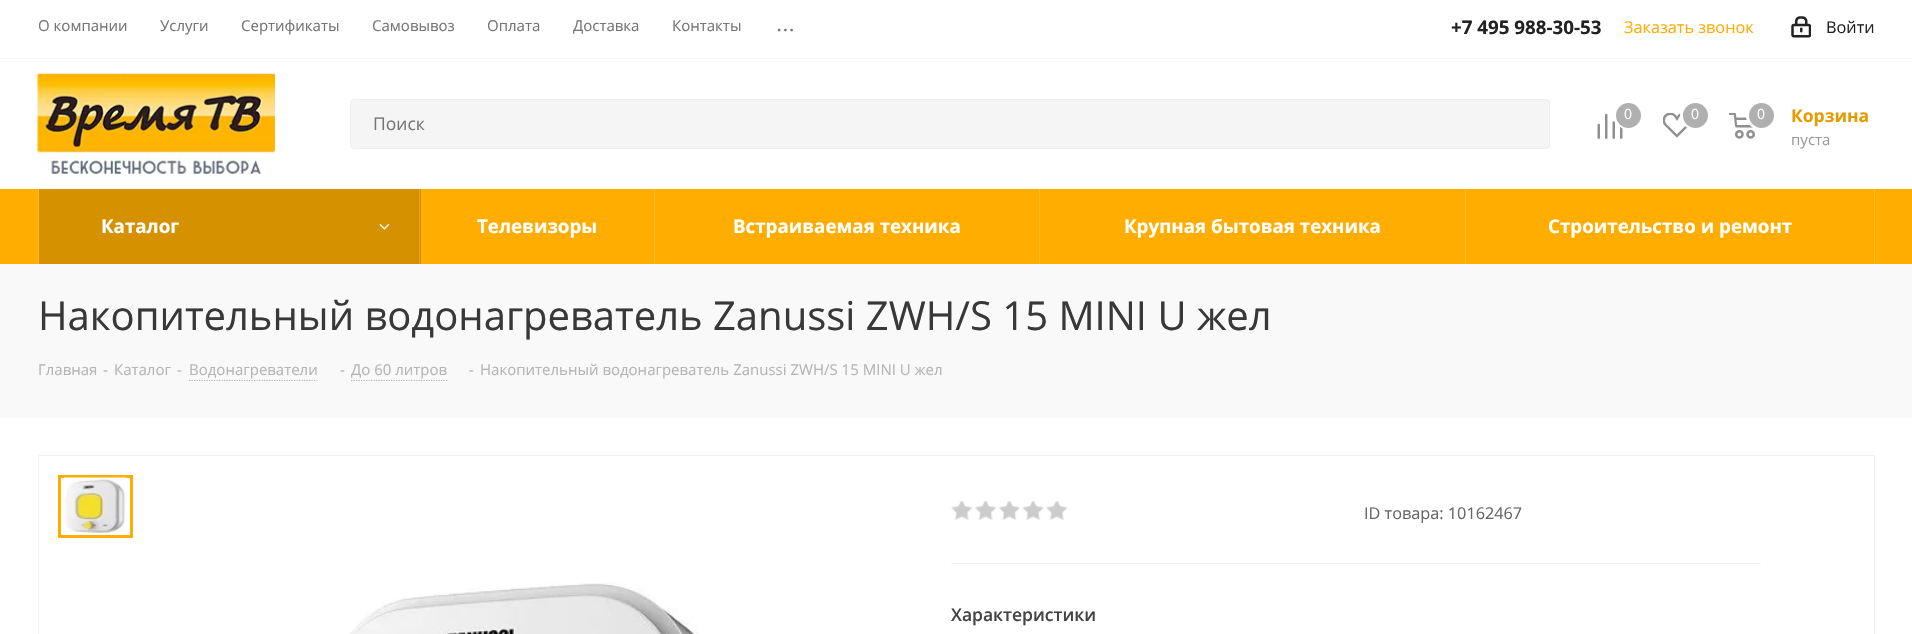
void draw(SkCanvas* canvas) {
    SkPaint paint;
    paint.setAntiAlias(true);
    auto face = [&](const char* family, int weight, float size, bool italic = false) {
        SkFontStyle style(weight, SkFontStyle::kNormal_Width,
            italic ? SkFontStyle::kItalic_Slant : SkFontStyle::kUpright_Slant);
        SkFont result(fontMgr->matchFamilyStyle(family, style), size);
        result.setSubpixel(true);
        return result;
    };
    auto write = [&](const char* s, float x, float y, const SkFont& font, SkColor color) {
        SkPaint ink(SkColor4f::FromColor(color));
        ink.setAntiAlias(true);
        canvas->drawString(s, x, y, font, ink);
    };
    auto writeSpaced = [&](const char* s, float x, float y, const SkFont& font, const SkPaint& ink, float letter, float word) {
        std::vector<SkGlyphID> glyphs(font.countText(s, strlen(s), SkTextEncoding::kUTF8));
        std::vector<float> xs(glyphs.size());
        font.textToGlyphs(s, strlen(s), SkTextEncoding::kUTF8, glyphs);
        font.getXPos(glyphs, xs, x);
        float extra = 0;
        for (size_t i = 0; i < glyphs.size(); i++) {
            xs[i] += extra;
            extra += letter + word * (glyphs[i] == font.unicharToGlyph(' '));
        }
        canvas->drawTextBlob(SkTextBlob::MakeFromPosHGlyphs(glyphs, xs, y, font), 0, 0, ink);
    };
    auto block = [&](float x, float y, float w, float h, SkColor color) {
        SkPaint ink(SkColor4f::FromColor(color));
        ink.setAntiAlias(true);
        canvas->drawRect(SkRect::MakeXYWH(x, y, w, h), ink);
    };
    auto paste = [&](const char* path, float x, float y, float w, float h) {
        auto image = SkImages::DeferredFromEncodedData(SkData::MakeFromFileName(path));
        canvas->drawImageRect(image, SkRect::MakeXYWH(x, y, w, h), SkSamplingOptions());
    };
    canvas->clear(SK_ColorWHITE);
    block(0, 58, 1912, 1, SkColorSetRGB(246, 246, 246));
    auto kFont1 = face("Open Sans", 400, 15);
    write("О компании", 38, 31, kFont1, SkColorSetRGB(117, 117, 117));
    write("Услуги", 160, 31, kFont1, SkColorSetRGB(117, 117, 117));
    write("Сертификаты", 241, 31, kFont1, SkColorSetRGB(117, 117, 117));
    write("Самовывоз", 372, 31, kFont1, SkColorSetRGB(117, 117, 117));
    write("Оплата", 487, 31, kFont1, SkColorSetRGB(117, 117, 117));
    write("Доставка", 573, 31, kFont1, SkColorSetRGB(117, 117, 117));
    write("Контакты", 672, 31, kFont1, SkColorSetRGB(117, 117, 117));
    auto kFont2 = face("Open Sans", 700, 15);
    paint.setColor(SkColorSetRGB(117, 117, 117));
    writeSpaced("...", 777, 31, kFont2, paint, 2, 0);
    auto kFont3 = face("Open Sans", 700, 18.75f);
    write("+7 495 988-30-53", 1451, 34, kFont3, SkColorSetRGB(34, 34, 34));
    auto kFont4 = face("Open Sans", 400, 16.25f);
    write("Заказать звонок", 1624, 33, kFont4, SkColorSetRGB(255, 173, 0));
    paste("pic1.png", 1791, 16, 20, 22);
    write("Войти", 1826, 33, kFont4, SkColorSetRGB(34, 34, 34));
    paste("pic2.png", 37, 73, 238, 101);
    paint.setColor(SkColorSetRGB(245, 245, 245));
    canvas->drawRoundRect(SkRect::MakeXYWH(350.5f, 99.5f, 1199, 49), 3.5f, 3.5f, paint);
    paint.setStyle(SkPaint::kStroke_Style);
    paint.setStrokeWidth(1);
    paint.setColor(SkColorSetRGB(238, 238, 238));
    canvas->drawRoundRect(SkRect::MakeXYWH(350.5f, 99.5f, 1199, 49), 3.5f, 3.5f, paint);
    auto kFont5 = face("Open Sans", 400, 17.5f);
    write("Поиск", 373, 130, kFont5, SkColorSetRGB(117, 117, 117));
    paste("pic3.png", 1597, 113, 26, 26);
    paint.setStrokeWidth(3);
    paint.setColor(SK_ColorWHITE);
    canvas->drawCircle(1629, 115, 13.5f, paint);
    paint.setStyle(SkPaint::kFill_Style);
    paint.setColor(SkColorSetRGB(176, 176, 176));
    canvas->drawCircle(1628.5f, 115.5f, 12.5f, paint);
    auto kFont6 = face("Open Sans", 400, 14);
    write("0", 1624, 119, kFont6, SK_ColorWHITE);
    paste("pic4.png", 1663, 113, 26, 25);
    paint.setStyle(SkPaint::kStroke_Style);
    paint.setColor(SK_ColorWHITE);
    canvas->drawCircle(1695, 115, 13.5f, paint);
    paint.setStyle(SkPaint::kFill_Style);
    paint.setColor(SkColorSetRGB(176, 176, 176));
    canvas->drawCircle(1695.5f, 115.5f, 12.5f, paint);
    write("0", 1691, 119, kFont6, SK_ColorWHITE);
    paste("pic5.png", 1729, 113, 26, 26);
    paint.setStyle(SkPaint::kStroke_Style);
    paint.setColor(SK_ColorWHITE);
    canvas->drawCircle(1761, 115, 13.5f, paint);
    canvas->drawCircle(1761, 115, 13.5f, paint);
    paint.setStyle(SkPaint::kFill_Style);
    paint.setColor(SkColorSetRGB(176, 176, 176));
    canvas->drawCircle(1761.5f, 115.5f, 12.5f, paint);
    write("0", 1757, 119, kFont6, SK_ColorWHITE);
    auto kFont7 = face("Open Sans", 700, 17.5f);
    write("Корзина", 1791, 122, kFont7, SkColorSetRGB(230, 156, 0));
    write("пуста", 1791, 145, kFont1, SkColorSetRGB(153, 153, 153));
    block(0, 189, 1912, 75, SkColorSetRGB(255, 173, 0));
    block(38, 189, 1, 75, SkColorSetRGB(255, 185, 38));
    block(39, 189, 382, 75, SkColorSetRGB(214, 145, 0));
    block(419, 189, 1, 75, SkColorSetRGB(220, 162, 38));
    write("Каталог", 101, 233, kFont3, SK_ColorWHITE);
    paste("pic6.png", 379, 223, 11, 7);
    block(654, 189, 1, 75, SkColorSetRGB(255, 185, 38));
    write("Телевизоры", 477, 233, kFont3, SK_ColorWHITE);
    block(1039, 189, 1, 75, SkColorSetRGB(255, 185, 38));
    write("Встраиваемая техника", 733, 233, kFont3, SK_ColorWHITE);
    block(1465, 189, 1, 75, SkColorSetRGB(255, 185, 38));
    write("Крупная бытовая техника", 1124, 233, kFont3, SK_ColorWHITE);
    block(1874, 189, 1, 75, SkColorSetRGB(255, 185, 38));
    write("Строительство и ремонт", 1548, 233, kFont3, SK_ColorWHITE);
    block(0, 264, 1912, 154, SkColorSetRGB(249, 249, 249));
    auto kFont8 = face("Open Sans", 400, 40);
    write("Накопительный водонагреватель Zanussi ZWH/S 15 MINI U жел", 38, 330, kFont8, SkColorSetRGB(56, 56, 56));
    write("Главная", 38, 375, kFont1, SkColorSetRGB(182, 181, 181));
    write("-", 103, 375, kFont1, SkColorSetRGB(182, 181, 181));
    write("Каталог", 114, 375, kFont1, SkColorSetRGB(182, 181, 181));
    write("-", 177, 375, kFont1, SkColorSetRGB(182, 181, 181));
    write("Водонагреватели", 189, 375, kFont1, SkColorSetRGB(182, 181, 181));
    paint.setStyle(SkPaint::kStroke_Style);
    paint.setStrokeWidth(1.2f);
    paint.setColor(SkColorSetRGB(180, 180, 180));
    paint.setPathEffect(SkDashPathEffect::Make({{1.25f, 1.25f}}, 0));
    canvas->drawPath(SkPathBuilder().moveTo(189, 380.5f).lineTo(317.5f, 380.5f).detach(), paint);
    paint.setPathEffect(nullptr);
    write("-", 340, 375, kFont1, SkColorSetRGB(182, 181, 181));
    write("До 60 литров", 351, 375, kFont1, SkColorSetRGB(182, 181, 181));
    paint.setPathEffect(SkDashPathEffect::Make({{1.25f, 1.25f}}, 0));
    canvas->drawPath(SkPathBuilder().moveTo(351, 380.5f).lineTo(447.5f, 380.5f).detach(), paint);
    paint.setPathEffect(nullptr);
    write("-", 469, 375, kFont1, SkColorSetRGB(182, 181, 181));
    write("Накопительный водонагреватель Zanussi ZWH/S 15 MINI U жел", 480, 375, kFont1, SkColorSetRGB(182, 181, 181));
    paint.setStrokeWidth(1);
    paint.setColor(SkColorSetRGB(242, 242, 242));
    canvas->drawRect(SkRect::MakeXYWH(38.5f, 455.5f, 1836, 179), paint);
    paint.setStrokeWidth(3);
    paint.setColor(SkColorSetRGB(255, 173, 0));
    canvas->drawRect(SkRect::MakeXYWH(59.5f, 476.5f, 72, 60), paint);
    paste("pic7.png", 63, 477, 64, 56);
    paste("pic8.png", 349, 582, 350, 52);
    block(951, 563, 810, 1, SkColorSetRGB(242, 242, 242));
    paste("pic9.png", 951, 501, 22, 19);
    paste("pic10.png", 975, 501, 22, 19);
    paste("pic11.png", 998, 501, 22, 19);
    paste("pic12.png", 1022, 501, 22, 19);
    paste("pic13.png", 1046, 501, 22, 19);
    write("ID товара: 10162467", 1364, 519, kFont4, SkColorSetRGB(102, 102, 102));
    auto kFont9 = face("Open Sans", 600, 17.5f);
    write("Характеристики", 951, 621, kFont9, SkColorSetRGB(68, 68, 68));
}
